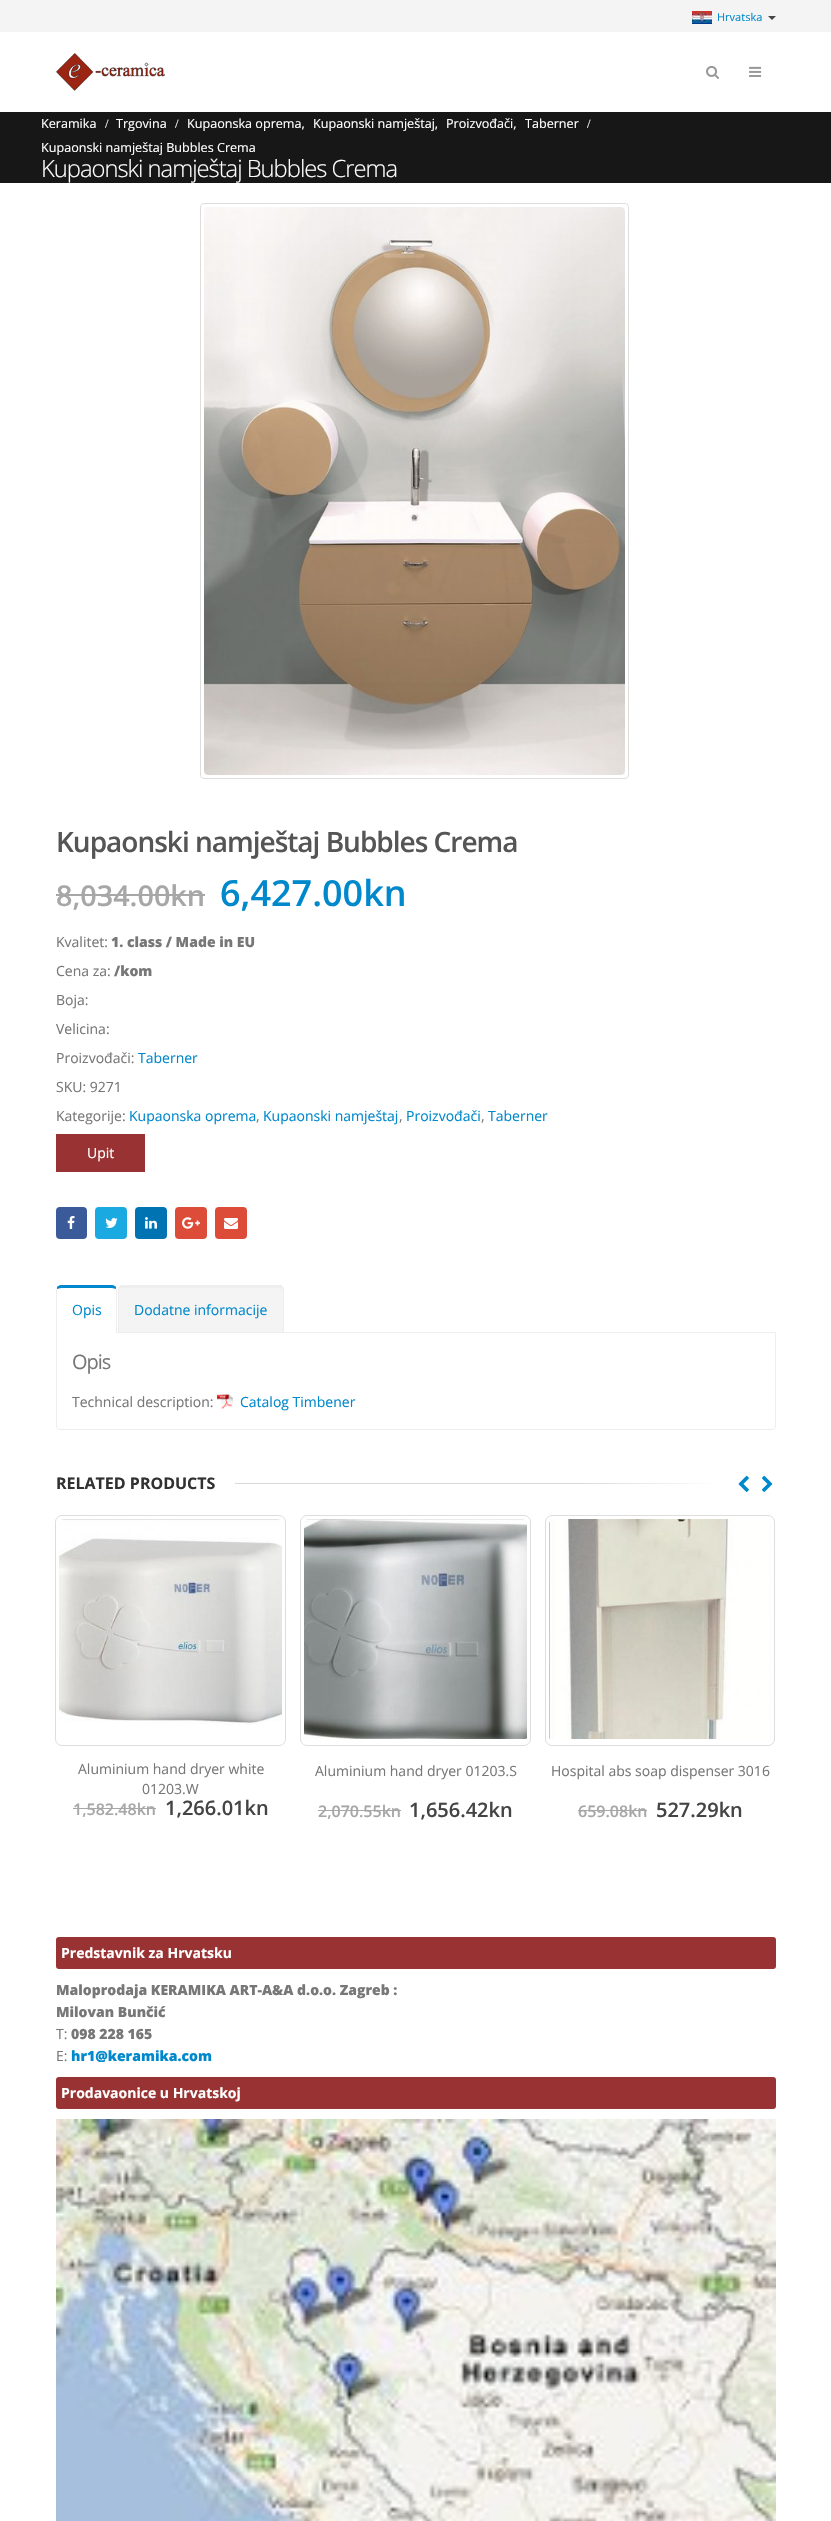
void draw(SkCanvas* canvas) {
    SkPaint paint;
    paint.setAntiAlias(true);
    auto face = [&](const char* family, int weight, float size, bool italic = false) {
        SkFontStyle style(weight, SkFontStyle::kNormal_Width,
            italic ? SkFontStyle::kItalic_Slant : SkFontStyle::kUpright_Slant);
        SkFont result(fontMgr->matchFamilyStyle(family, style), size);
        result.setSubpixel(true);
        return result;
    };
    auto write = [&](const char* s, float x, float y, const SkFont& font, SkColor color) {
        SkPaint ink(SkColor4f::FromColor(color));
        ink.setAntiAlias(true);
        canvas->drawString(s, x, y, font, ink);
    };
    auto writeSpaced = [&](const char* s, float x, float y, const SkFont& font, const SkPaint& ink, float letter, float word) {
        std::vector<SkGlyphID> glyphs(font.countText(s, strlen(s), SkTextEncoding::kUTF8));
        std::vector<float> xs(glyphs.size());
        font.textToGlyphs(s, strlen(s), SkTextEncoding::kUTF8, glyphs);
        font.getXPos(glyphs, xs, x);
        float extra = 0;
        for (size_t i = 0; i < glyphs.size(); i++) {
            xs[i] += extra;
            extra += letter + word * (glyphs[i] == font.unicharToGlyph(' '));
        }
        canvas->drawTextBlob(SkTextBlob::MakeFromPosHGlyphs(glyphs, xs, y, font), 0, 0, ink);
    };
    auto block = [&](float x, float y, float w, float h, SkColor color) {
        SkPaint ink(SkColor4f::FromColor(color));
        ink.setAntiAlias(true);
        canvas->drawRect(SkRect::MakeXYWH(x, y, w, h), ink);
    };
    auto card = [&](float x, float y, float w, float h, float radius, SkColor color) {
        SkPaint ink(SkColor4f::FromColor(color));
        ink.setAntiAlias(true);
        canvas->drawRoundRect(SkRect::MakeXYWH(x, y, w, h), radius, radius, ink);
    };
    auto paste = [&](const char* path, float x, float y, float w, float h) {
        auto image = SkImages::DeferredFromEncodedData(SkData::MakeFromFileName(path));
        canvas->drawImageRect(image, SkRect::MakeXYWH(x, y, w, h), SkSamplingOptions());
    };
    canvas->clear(SK_ColorWHITE);
    block(0, 0, 831, 32, SkColorSetRGB(244, 244, 244));
    paste("pic1.png", 692, 11, 20, 13);
    auto kFont1 = face("Open Sans", 400, 11);
    write("Hrvatska", 717, 21, kFont1, SkColorSetRGB(0, 136, 204));
    paint.setColor(SkColorSetRGB(68, 68, 68));
    canvas->drawPath(SkPathBuilder().moveTo(768, 16).lineTo(776, 16).lineTo(772, 20).close().detach(), paint);
    paste("pic2.png", 56, 53, 109, 38);
    paste("pic3.png", 706, 65, 13, 14);
    paste("pic4.png", 749, 66, 13, 11);
    block(0, 112, 831, 71, SkColorSetRGB(23, 23, 23));
    auto kFont2 = face("Open Sans", 400, 12.6f);
    write("Keramika", 41, 128, kFont2, SK_ColorWHITE);
    auto kFont3 = face("Liberation Serif", 400, 12.6f);
    write("/", 105, 128, kFont3, SK_ColorWHITE);
    write("Trgovina", 116, 128, kFont2, SK_ColorWHITE);
    write("/", 175, 128, kFont3, SK_ColorWHITE);
    write("Kupaonska oprema,", 187, 128, kFont2, SK_ColorWHITE);
    write("Kupaonski namještaj,", 313, 128, kFont2, SK_ColorWHITE);
    write("Proizvođači,", 446, 128, kFont2, SK_ColorWHITE);
    write("Taberner", 525, 128, kFont2, SK_ColorWHITE);
    write("/", 587, 128, kFont3, SK_ColorWHITE);
    write("Kupaonski namještaj Bubbles Crema", 41, 152, kFont2, SK_ColorWHITE);
    auto kFont4 = face("Open Sans", 300, 23.75f);
    paint.setColor(SK_ColorWHITE);
    writeSpaced("Kupaonski namještaj Bubbles Crema", 41, 177, kFont4, paint, -1, 0);
    paint.setStyle(SkPaint::kStroke_Style);
    paint.setStrokeWidth(1);
    paint.setColor(SkColorSetRGB(221, 221, 221));
    canvas->drawRoundRect(SkRect::MakeXYWH(200.5f, 203.5f, 428, 575), 3.5f, 3.5f, paint);
    paste("pic5.png", 204, 207, 421, 568);
    auto kFont5 = face("Open Sans", 600, 28);
    paint.setStyle(SkPaint::kFill_Style);
    paint.setColor(SkColorSetRGB(85, 85, 85));
    writeSpaced("Kupaonski namještaj Bubbles Crema", 56, 852, kFont5, paint, -1, 0);
    auto kFont6 = face("Open Sans", 600, 28.75f);
    write("8,034.00kn", 56, 906, kFont6, SkColorSetRGB(167, 167, 167));
    block(56, 894, 149, 2, SkColorSetRGB(167, 167, 167));
    auto kFont7 = face("Open Sans", 600, 36);
    write("6,427.00kn", 220, 906, kFont7, SkColorSetRGB(0, 136, 204));
    auto kFont8 = face("Open Sans", 400, 14);
    write("Kvalitet:", 56, 947, kFont8, SkColorSetRGB(119, 119, 119));
    auto kFont9 = face("Open Sans", 800, 14);
    write("1. class / Made in EU", 111, 947, kFont9, SkColorSetRGB(119, 119, 119));
    write("Cena za:", 56, 976, kFont8, SkColorSetRGB(119, 119, 119));
    write("/kom", 114, 976, kFont9, SkColorSetRGB(119, 119, 119));
    write("Boja:", 56, 1005, kFont8, SkColorSetRGB(119, 119, 119));
    write("Velicina:", 56, 1034, kFont8, SkColorSetRGB(119, 119, 119));
    write("Proizvođači:", 56, 1063, kFont8, SkColorSetRGB(119, 119, 119));
    write("Taberner", 138, 1063, kFont8, SkColorSetRGB(0, 136, 204));
    write("SKU: 9271", 56, 1092, kFont8, SkColorSetRGB(119, 119, 119));
    write("Kategorije:", 56, 1121, kFont8, SkColorSetRGB(119, 119, 119));
    write("Kupaonska oprema", 129, 1121, kFont8, SkColorSetRGB(0, 136, 204));
    write(",", 256, 1121, kFont8, SkColorSetRGB(119, 119, 119));
    write("Kupaonski namještaj", 263, 1121, kFont8, SkColorSetRGB(0, 136, 204));
    write(",", 399, 1121, kFont8, SkColorSetRGB(119, 119, 119));
    write("Proizvođači", 406, 1121, kFont8, SkColorSetRGB(0, 136, 204));
    write(",", 481, 1121, kFont8, SkColorSetRGB(119, 119, 119));
    write("Taberner", 488, 1121, kFont8, SkColorSetRGB(0, 136, 204));
    block(56, 1134, 89, 38, SkColorSetRGB(153, 51, 51));
    write("Upit", 87, 1158, kFont8, SK_ColorWHITE);
    card(56, 1207, 31, 32, 4, SkColorSetRGB(59, 90, 154));
    paste("pic6.png", 67, 1216, 8, 13);
    card(95, 1207, 32, 32, 4, SkColorSetRGB(26, 169, 225));
    paste("pic7.png", 105, 1218, 13, 10);
    card(135, 1207, 32, 32, 4, SkColorSetRGB(0, 115, 178));
    paste("pic8.png", 145, 1217, 12, 12);
    card(175, 1207, 32, 32, 4, SkColorSetRGB(221, 75, 57));
    paste("pic9.png", 182, 1217, 18, 12);
    card(215, 1207, 32, 32, 4, SkColorSetRGB(221, 75, 57));
    paste("pic10.png", 224, 1218, 14, 11);
    block(117, 1332, 659, 1, SkColorSetRGB(238, 238, 238));
    paint.setColor(SkColorSetRGB(0, 136, 204));
    canvas->drawPath(SkPathBuilder().moveTo(61, 1285).cubicTo(59, 1285, 58, 1286, 57, 1287).lineTo(57, 1289).cubicTo(58, 1289, 60, 1288, 61, 1288).lineTo(112, 1288).cubicTo(113, 1288, 115, 1289, 116, 1289).lineTo(116, 1287).cubicTo(115, 1286, 114, 1285, 112, 1285).close().detach(), paint);
    paint.setColor(SkColorSetRGB(238, 238, 238));
    canvas->drawPath(SkPathBuilder().moveTo(116, 1333).lineTo(117, 1333).lineTo(117, 1290).lineTo(116, 1287).lineTo(116, 1289).cubicTo(116, 1290, 116, 1328, 116, 1333).close().moveTo(56, 1333).lineTo(57, 1333).cubicTo(57, 1328, 57, 1290, 57, 1289).lineTo(57, 1287).lineTo(56, 1290).close().detach(), paint);
    write("Opis", 72, 1315, kFont8, SkColorSetRGB(0, 136, 204));
    paint.setColor(SkColorSetRGB(244, 244, 244));
    canvas->drawPath(SkPathBuilder().moveTo(123, 1285).lineTo(279, 1285).cubicTo(282, 1285, 284, 1287, 284, 1290).lineTo(284, 1332).lineTo(118, 1332).lineTo(118, 1290).cubicTo(118, 1287, 120, 1285, 123, 1285).close().detach(), paint);
    paint.setColor(SkColorSetRGB(238, 238, 238));
    canvas->drawPath(SkPathBuilder(SkPathFillType::kEvenOdd).moveTo(123, 1285).lineTo(279, 1285).cubicTo(282, 1285, 284, 1287, 284, 1290).lineTo(284, 1332).lineTo(118, 1332).lineTo(118, 1290).cubicTo(118, 1287, 120, 1285, 123, 1285).close().moveTo(123, 1288).lineTo(279, 1288).cubicTo(281, 1288, 283, 1289, 283, 1290).lineTo(283, 1332).lineTo(119, 1332).lineTo(119, 1290).cubicTo(119, 1289, 121, 1288, 123, 1288).close().detach(), paint);
    write("Dodatne informacije", 134, 1315, kFont8, SkColorSetRGB(0, 136, 204));
    canvas->drawPath(SkPathBuilder(SkPathFillType::kEvenOdd).moveTo(56, 1333).lineTo(776, 1333).lineTo(776, 1426).cubicTo(776, 1428, 774, 1430, 772, 1430).lineTo(60, 1430).cubicTo(58, 1430, 56, 1428, 56, 1426).close().moveTo(57, 1333).lineTo(775, 1333).lineTo(775, 1426).cubicTo(775, 1428, 774, 1429, 772, 1429).lineTo(60, 1429).cubicTo(58, 1429, 57, 1428, 57, 1426).close().detach(), paint);
    auto kFont10 = face("Open Sans", 400, 20);
    paint.setColor(SkColorSetRGB(119, 119, 119));
    writeSpaced("Opis", 72, 1369, kFont10, paint, -1, 0);
    write("Technical description:", 72, 1407, kFont8, SkColorSetRGB(119, 119, 119));
    paste("pic11.png", 217, 1394, 16, 15);
    write("Catalog Timbener", 240, 1407, kFont8, SkColorSetRGB(0, 136, 204));
    auto kFont11 = face("Open Sans", 700, 16);
    write("RELATED PRODUCTS", 56, 1489, kFont11, SkColorSetRGB(49, 49, 49));
    {
        const SkColor colors[] = {SkColorSetRGB(217, 217, 217), SkColorSetRGB(217, 217, 217), SK_ColorWHITE};
        const float stops[] = {0, 0.7f, 1};
        const SkPoint ends[] = {{235, 1484}, {721, 1484}};
        paint.setShader(SkGradientShader::MakeLinear(ends, colors, stops, 3, SkTileMode::kClamp));
        paint.setAlpha(255);
    }
    canvas->drawRect(SkRect::MakeXYWH(235, 1483, 476, 1), paint);
    paste("pic12.png", 738, 1475, 11, 17);
    paste("pic13.png", 761, 1475, 12, 17);
    paint.setStyle(SkPaint::kStroke_Style);
    paint.setShader(nullptr);
    paint.setColor(SkColorSetRGB(221, 221, 221));
    canvas->drawRoundRect(SkRect::MakeXYWH(55.5f, 1515.5f, 230, 230), 6.5f, 6.5f, paint);
    paste("pic14.png", 59, 1519, 223, 206);
    write("Aluminium hand dryer white", 78, 1774, kFont8, SkColorSetRGB(119, 119, 119));
    write("01203.W", 142, 1794, kFont8, SkColorSetRGB(119, 119, 119));
    auto kFont12 = face("Open Sans", 600, 16);
    write("1,582.48kn", 73, 1815, kFont12, SkColorSetRGB(167, 167, 167));
    block(73, 1808, 83, 1, SkColorSetRGB(167, 167, 167));
    auto kFont13 = face("Open Sans", 600, 20);
    write("1,266.01kn", 165, 1815, kFont13, SkColorSetRGB(68, 68, 68));
    canvas->drawRoundRect(SkRect::MakeXYWH(300.5f, 1515.5f, 230, 230), 6.5f, 6.5f, paint);
    paste("pic15.png", 304, 1519, 223, 220);
    write("Aluminium hand dryer 01203.S", 315, 1776, kFont8, SkColorSetRGB(119, 119, 119));
    write("2,070.55kn", 318, 1817, kFont12, SkColorSetRGB(167, 167, 167));
    block(318, 1810, 83, 1, SkColorSetRGB(167, 167, 167));
    write("1,656.42kn", 409, 1817, kFont13, SkColorSetRGB(68, 68, 68));
    canvas->drawRoundRect(SkRect::MakeXYWH(545.5f, 1515.5f, 229, 230), 6.5f, 6.5f, paint);
    paste("pic16.png", 549, 1519, 222, 220);
    write("Hospital abs soap dispenser 3016", 551, 1776, kFont8, SkColorSetRGB(119, 119, 119));
    write("659.08kn", 578, 1817, kFont12, SkColorSetRGB(167, 167, 167));
    block(578, 1810, 69, 1, SkColorSetRGB(167, 167, 167));
    write("527.29kn", 656, 1817, kFont13, SkColorSetRGB(68, 68, 68));
    card(56, 1937, 720, 32, 3, SkColorSetRGB(153, 51, 51));
    auto kFont14 = face("Open Sans", 700, 14);
    write("Predstavnik za Hrvatsku", 61, 1958, kFont14, SK_ColorWHITE);
    write("Maloprodaja KERAMIKA ART-A&A d.o.o. Zagreb :", 56, 1995, kFont9, SkColorSetRGB(119, 119, 119));
    write("Milovan Bunčić", 56, 2017, kFont9, SkColorSetRGB(119, 119, 119));
    write("T:", 56, 2039, kFont8, SkColorSetRGB(119, 119, 119));
    write("098 228 165", 71, 2039, kFont9, SkColorSetRGB(119, 119, 119));
    write("E:", 56, 2061, kFont8, SkColorSetRGB(119, 119, 119));
    write("hr1@keramika.com", 71, 2061, kFont9, SkColorSetRGB(0, 136, 204));
    card(56, 2077, 720, 32, 3, SkColorSetRGB(153, 51, 51));
    write("Prodavaonice u Hrvatskoj", 61, 2098, kFont14, SK_ColorWHITE);
    paste("pic17.png", 56, 2119, 720, 402);
}
